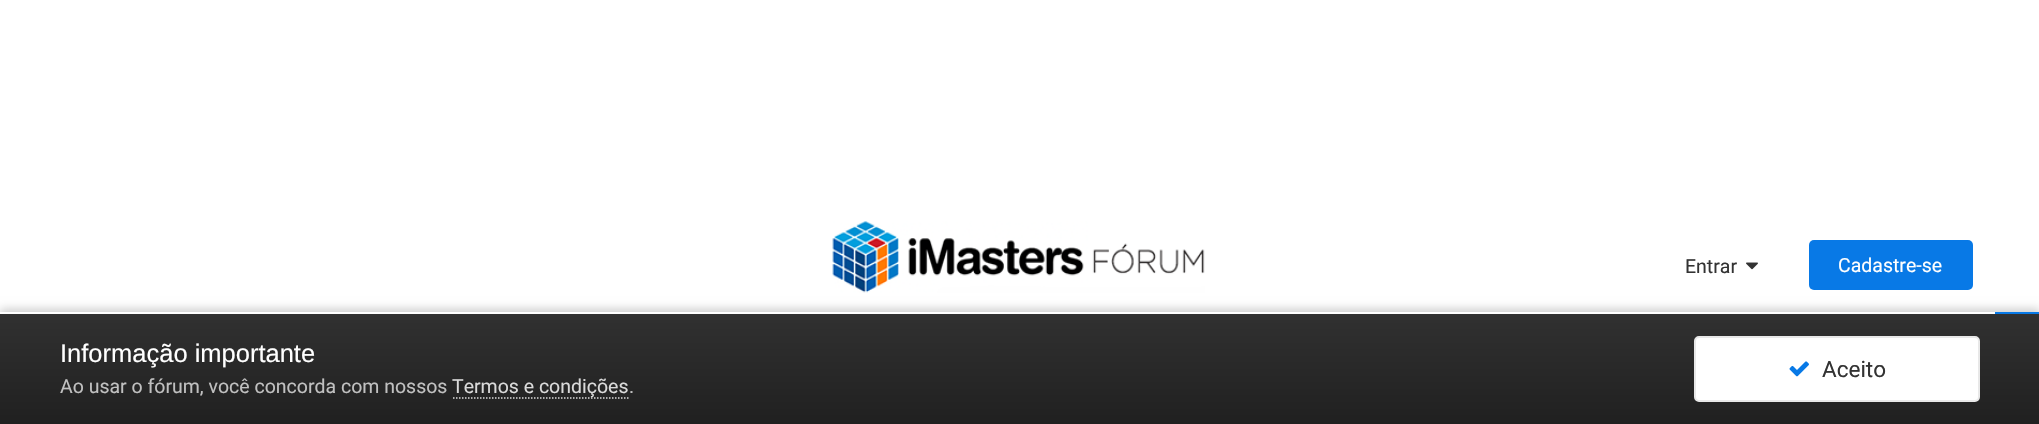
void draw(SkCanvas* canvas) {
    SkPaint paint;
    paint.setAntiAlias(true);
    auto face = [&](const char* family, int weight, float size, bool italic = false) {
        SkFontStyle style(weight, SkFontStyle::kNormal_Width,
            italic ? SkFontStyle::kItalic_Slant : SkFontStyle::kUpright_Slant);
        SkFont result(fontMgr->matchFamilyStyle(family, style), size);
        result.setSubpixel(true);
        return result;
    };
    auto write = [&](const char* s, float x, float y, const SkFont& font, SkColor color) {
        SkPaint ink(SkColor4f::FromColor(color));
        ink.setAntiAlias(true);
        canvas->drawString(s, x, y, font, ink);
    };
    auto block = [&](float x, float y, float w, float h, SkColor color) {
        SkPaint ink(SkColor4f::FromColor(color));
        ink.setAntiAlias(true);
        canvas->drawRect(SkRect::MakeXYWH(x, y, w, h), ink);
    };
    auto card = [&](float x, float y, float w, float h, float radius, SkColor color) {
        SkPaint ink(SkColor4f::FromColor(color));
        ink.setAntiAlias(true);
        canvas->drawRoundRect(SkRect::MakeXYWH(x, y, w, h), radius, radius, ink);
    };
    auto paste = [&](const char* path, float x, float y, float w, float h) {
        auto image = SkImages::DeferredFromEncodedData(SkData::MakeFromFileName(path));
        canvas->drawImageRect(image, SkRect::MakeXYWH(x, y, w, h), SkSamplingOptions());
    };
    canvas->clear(SK_ColorWHITE);
    paste("pic1.png", 832, 221, 373, 72);
    auto kFont1 = face("Roboto", 400, 19.5f);
    write("Entrar", 1685, 273, kFont1, SkColorSetRGB(51, 51, 51));
    paste("pic2.png", 1746, 262, 12, 8);
    card(1809, 240, 164, 50, 5, SkColorSetRGB(8, 121, 230));
    write("Cadastre-se", 1838, 272, kFont1, SK_ColorWHITE);
    paint.setColor(SkColorSetARGB(51, 0, 0, 0));
    paint.setMaskFilter(SkMaskFilter::MakeBlur(kNormal_SkBlurStyle, 4.5f));
    canvas->drawRect(SkRect::MakeXYWH(0, 309, 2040, 113), paint);
    paint.setMaskFilter(nullptr);
    block(0, 312, 1995, 2, SK_ColorWHITE);
    block(1995, 312, 44, 2, SkColorSetRGB(8, 121, 230));
    {
        const SkColor colors[] = {SkColorSetRGB(49, 49, 49), SkColorSetRGB(32, 32, 32)};
        const float stops[] = {0, 1};
        const SkPoint ends[] = {{1020, 313}, {1020, 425}};
        paint.setShader(SkGradientShader::MakeLinear(ends, colors, stops, 2, SkTileMode::kClamp));
        paint.setAlpha(255);
    }
    canvas->drawRect(SkRect::MakeXYWH(0, 314, 2039, 110), paint);
    auto kFont2 = face("Liberation Sans", 400, 25.5f);
    write("Informação importante", 60, 362, kFont2, SK_ColorWHITE);
    write("Ao usar o fórum, você concorda com nossos", 60, 393, kFont1, SkColorSetRGB(192, 192, 192));
    paint.setStyle(SkPaint::kStroke_Style);
    paint.setStrokeWidth(1.5f);
    paint.setShader(nullptr);
    paint.setColor(SkColorSetRGB(218, 218, 218));
    paint.setPathEffect(SkDashPathEffect::Make({{1.5f, 1.5f}}, 0));
    canvas->drawPath(SkPathBuilder().moveTo(453, 398).lineTo(628.5f, 398).detach(), paint);
    paint.setPathEffect(nullptr);
    write("Termos e condições", 452, 393, kFont1, SkColorSetRGB(218, 218, 218));
    write(".", 629, 393, kFont1, SkColorSetRGB(192, 192, 192));
    paint.setStyle(SkPaint::kFill_Style);
    paint.setColor(SK_ColorWHITE);
    canvas->drawRoundRect(SkRect::MakeXYWH(1695, 337, 284, 64), 4, 4, paint);
    paint.setStyle(SkPaint::kStroke_Style);
    paint.setStrokeWidth(2);
    paint.setColor(SkColorSetRGB(232, 232, 232));
    canvas->drawRoundRect(SkRect::MakeXYWH(1695, 337, 284, 64), 4, 4, paint);
    paste("pic3.png", 1789, 361, 20, 16);
    auto kFont3 = face("Roboto", 400, 22.5f);
    write("Aceito", 1822, 377, kFont3, SkColorSetRGB(51, 51, 51));
}
